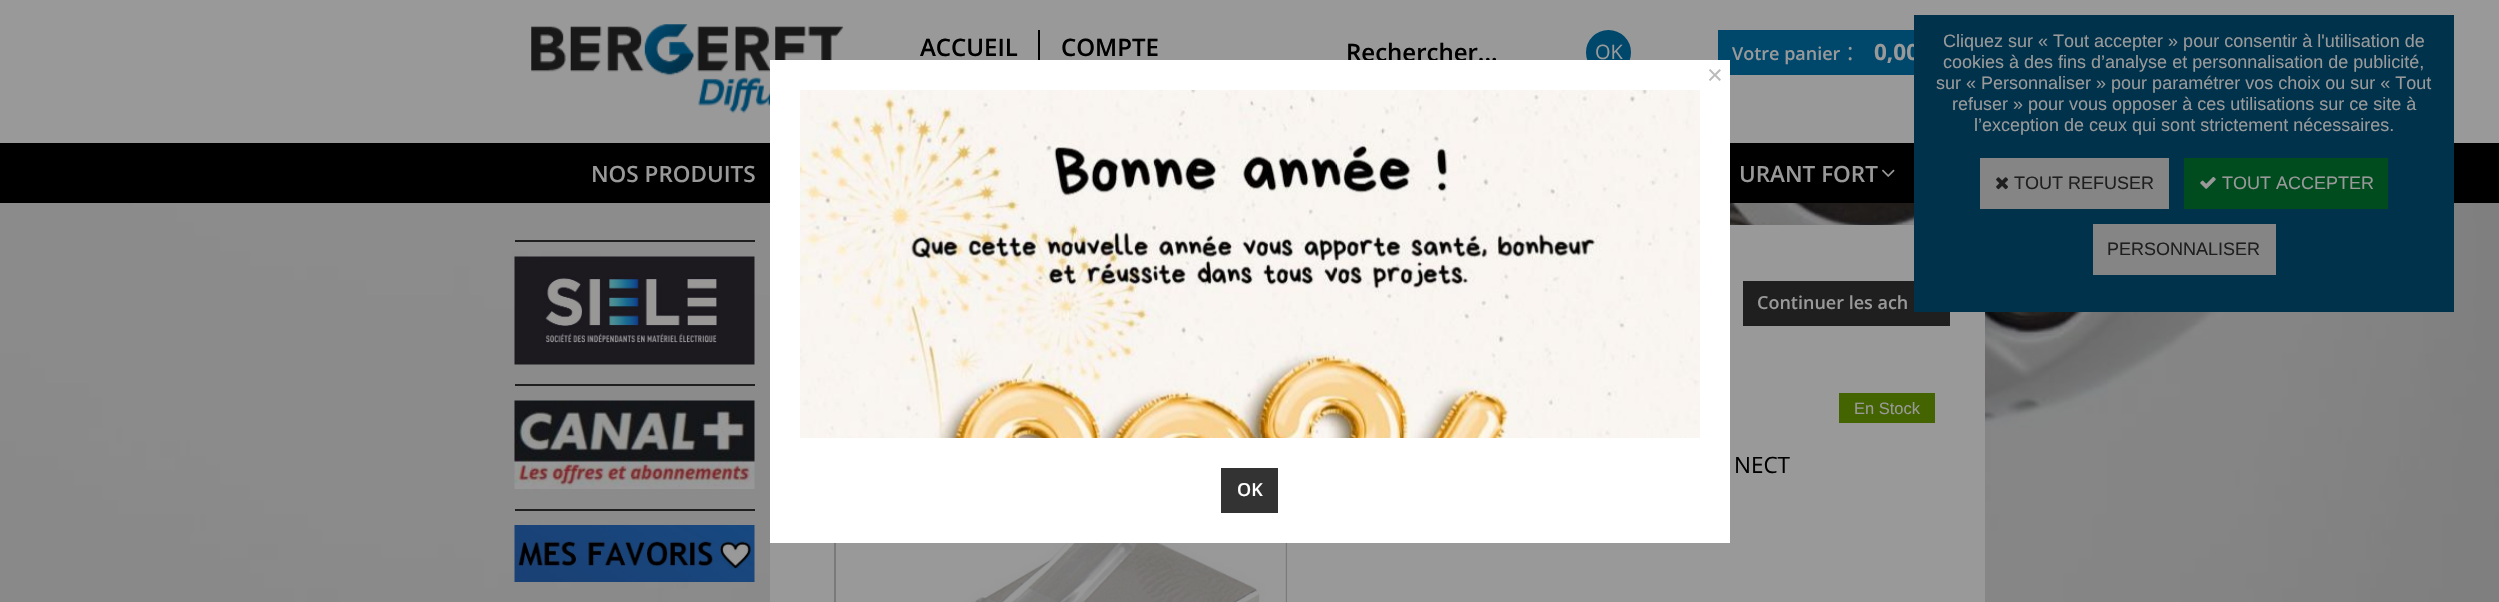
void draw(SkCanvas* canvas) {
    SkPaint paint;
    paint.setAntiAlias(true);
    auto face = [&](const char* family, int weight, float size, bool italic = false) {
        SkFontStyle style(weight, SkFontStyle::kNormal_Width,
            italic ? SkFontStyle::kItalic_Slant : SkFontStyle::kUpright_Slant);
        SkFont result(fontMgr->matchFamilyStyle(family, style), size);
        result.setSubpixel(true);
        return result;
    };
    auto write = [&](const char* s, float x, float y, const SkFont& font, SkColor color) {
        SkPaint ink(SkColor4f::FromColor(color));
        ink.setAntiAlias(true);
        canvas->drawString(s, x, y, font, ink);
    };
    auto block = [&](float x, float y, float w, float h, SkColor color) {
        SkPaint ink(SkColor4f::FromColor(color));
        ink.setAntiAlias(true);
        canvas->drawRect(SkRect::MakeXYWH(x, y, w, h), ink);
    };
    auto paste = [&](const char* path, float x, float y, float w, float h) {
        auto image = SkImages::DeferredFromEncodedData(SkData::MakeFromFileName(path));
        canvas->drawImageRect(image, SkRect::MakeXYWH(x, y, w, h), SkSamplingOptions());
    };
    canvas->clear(SK_ColorWHITE);
    paste("pic1.png", 0, 203, 2499, 399);
    block(0, 0, 2499, 143, SkColorSetRGB(153, 153, 153));
    block(0, 143, 2499, 60, SK_ColorBLACK);
    paste("pic2.png", 531, 24, 313, 90);
    auto kFont1 = face("Open Sans", 600, 24);
    write("ACCUEIL", 920, 56, kFont1, SK_ColorBLACK);
    block(1038, 30, 2, 33, SK_ColorBLACK);
    write("COMPTE", 1061, 56, kFont1, SK_ColorBLACK);
    write("Rechercher...", 1346, 61, kFont1, SK_ColorBLACK);
    paint.setColor(SkColorSetRGB(0, 71, 108));
    canvas->drawCircle(1608.5f, 52.5f, 21.5f, paint);
    paint.setStyle(SkPaint::kStroke_Style);
    paint.setStrokeWidth(2);
    canvas->drawCircle(1608.5f, 52.5f, 21.5f, paint);
    auto kFont2 = face("Open Sans", 400, 20);
    write("OK", 1595, 59, kFont2, SkColorSetRGB(153, 153, 153));
    block(1718, 30, 196, 45, SkColorSetRGB(0, 71, 108));
    auto kFont3 = face("Open Sans", 600, 18);
    write("Votre panier", 1732, 60, kFont3, SkColorSetRGB(153, 153, 153));
    auto kFont4 = face("Open Sans", 400, 24);
    write(":", 1847, 60, kFont4, SkColorSetRGB(153, 153, 153));
    auto kFont5 = face("Open Sans", 700, 22.5f);
    write("0,00", 1874, 60, kFont5, SkColorSetRGB(153, 153, 153));
    auto kFont6 = face("Open Sans", 600, 22.5f);
    write("NOS PRODUITS", 591, 182, kFont6, SkColorSetRGB(153, 153, 153));
    write("URANT FORT", 1739, 182, kFont6, SkColorSetRGB(153, 153, 153));
    paste("pic3.png", 1882, 169, 13, 8);
    block(770, 225, 1215, 377, SkColorSetRGB(153, 153, 153));
    block(1743, 281, 207, 45, SkColorSetRGB(31, 31, 31));
    block(1914, 15, 540, 297, SkColorSetRGB(0, 50, 76));
    auto kFont7 = face("Liberation Sans", 400, 18);
    write("Cliquez sur « Tout accepter » pour consentir à l'utilisation de", 1943, 47, kFont7, SkColorSetRGB(153, 153, 153));
    write("cookies à des fins d’analyse et personnalisation de publicité,", 1943, 68, kFont7, SkColorSetRGB(153, 153, 153));
    write("sur « Personnaliser » pour paramétrer vos choix ou sur « Tout", 1936, 89, kFont7, SkColorSetRGB(153, 153, 153));
    write("refuser » pour vous opposer à ces utilisations sur ce site à", 1952, 110, kFont7, SkColorSetRGB(153, 153, 153));
    write("l’exception de ceux qui sont strictement nécessaires.", 1974, 131, kFont7, SkColorSetRGB(153, 153, 153));
    block(1980, 158, 189, 51, SkColorSetRGB(133, 133, 133));
    paste("pic4.png", 1996, 177, 12, 13);
    write("TOUT REFUSER", 2014, 189, kFont7, SkColorSetRGB(31, 31, 31));
    block(2184, 158, 204, 51, SkColorSetRGB(0, 76, 31));
    paste("pic5.png", 2200, 176, 16, 13);
    write("TOUT ACCEPTER", 2222, 189, kFont7, SkColorSetRGB(153, 153, 153));
    block(2093, 224, 183, 51, SkColorSetRGB(133, 133, 133));
    write("PERSONNALISER", 2107, 255, kFont7, SkColorSetRGB(31, 31, 31));
    block(515, 240, 240, 2, SkColorSetRGB(31, 31, 31));
    paste("pic6.png", 514, 256, 241, 109);
    block(515, 384, 240, 2, SkColorSetRGB(31, 31, 31));
    paste("pic7.png", 514, 400, 241, 89);
    block(515, 509, 240, 2, SkColorSetRGB(31, 31, 31));
    paste("pic8.png", 514, 525, 241, 57);
    write("Continuer les ach", 1757, 309, kFont3, SkColorSetRGB(153, 153, 153));
    block(1839, 393, 96, 30, SkColorSetRGB(67, 100, 0));
    auto kFont8 = face("Liberation Sans", 400, 16.5f);
    write("En Stock", 1854, 414, kFont8, SkColorSetRGB(153, 153, 153));
    paint.setColor(SkColorSetRGB(122, 122, 122));
    canvas->drawRect(SkRect::MakeXYWH(835, 465, 451, 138), paint);
    paste("pic9.png", 836, 543, 450, 59);
    auto kFont9 = face("Open Sans", 400, 22.5f);
    write("NECT", 1734, 473, kFont9, SK_ColorBLACK);
    block(770, 60, 960, 483, SK_ColorWHITE);
    auto kFont10 = face("Liberation Sans", 400, 27);
    write("×", 1707, 84, kFont10, SkColorSetRGB(187, 187, 187));
    paste("pic10.png", 800, 90, 900, 348);
    block(1221, 468, 57, 45, SkColorSetRGB(51, 51, 51));
    write("OK", 1237, 496, kFont3, SK_ColorWHITE);
}
